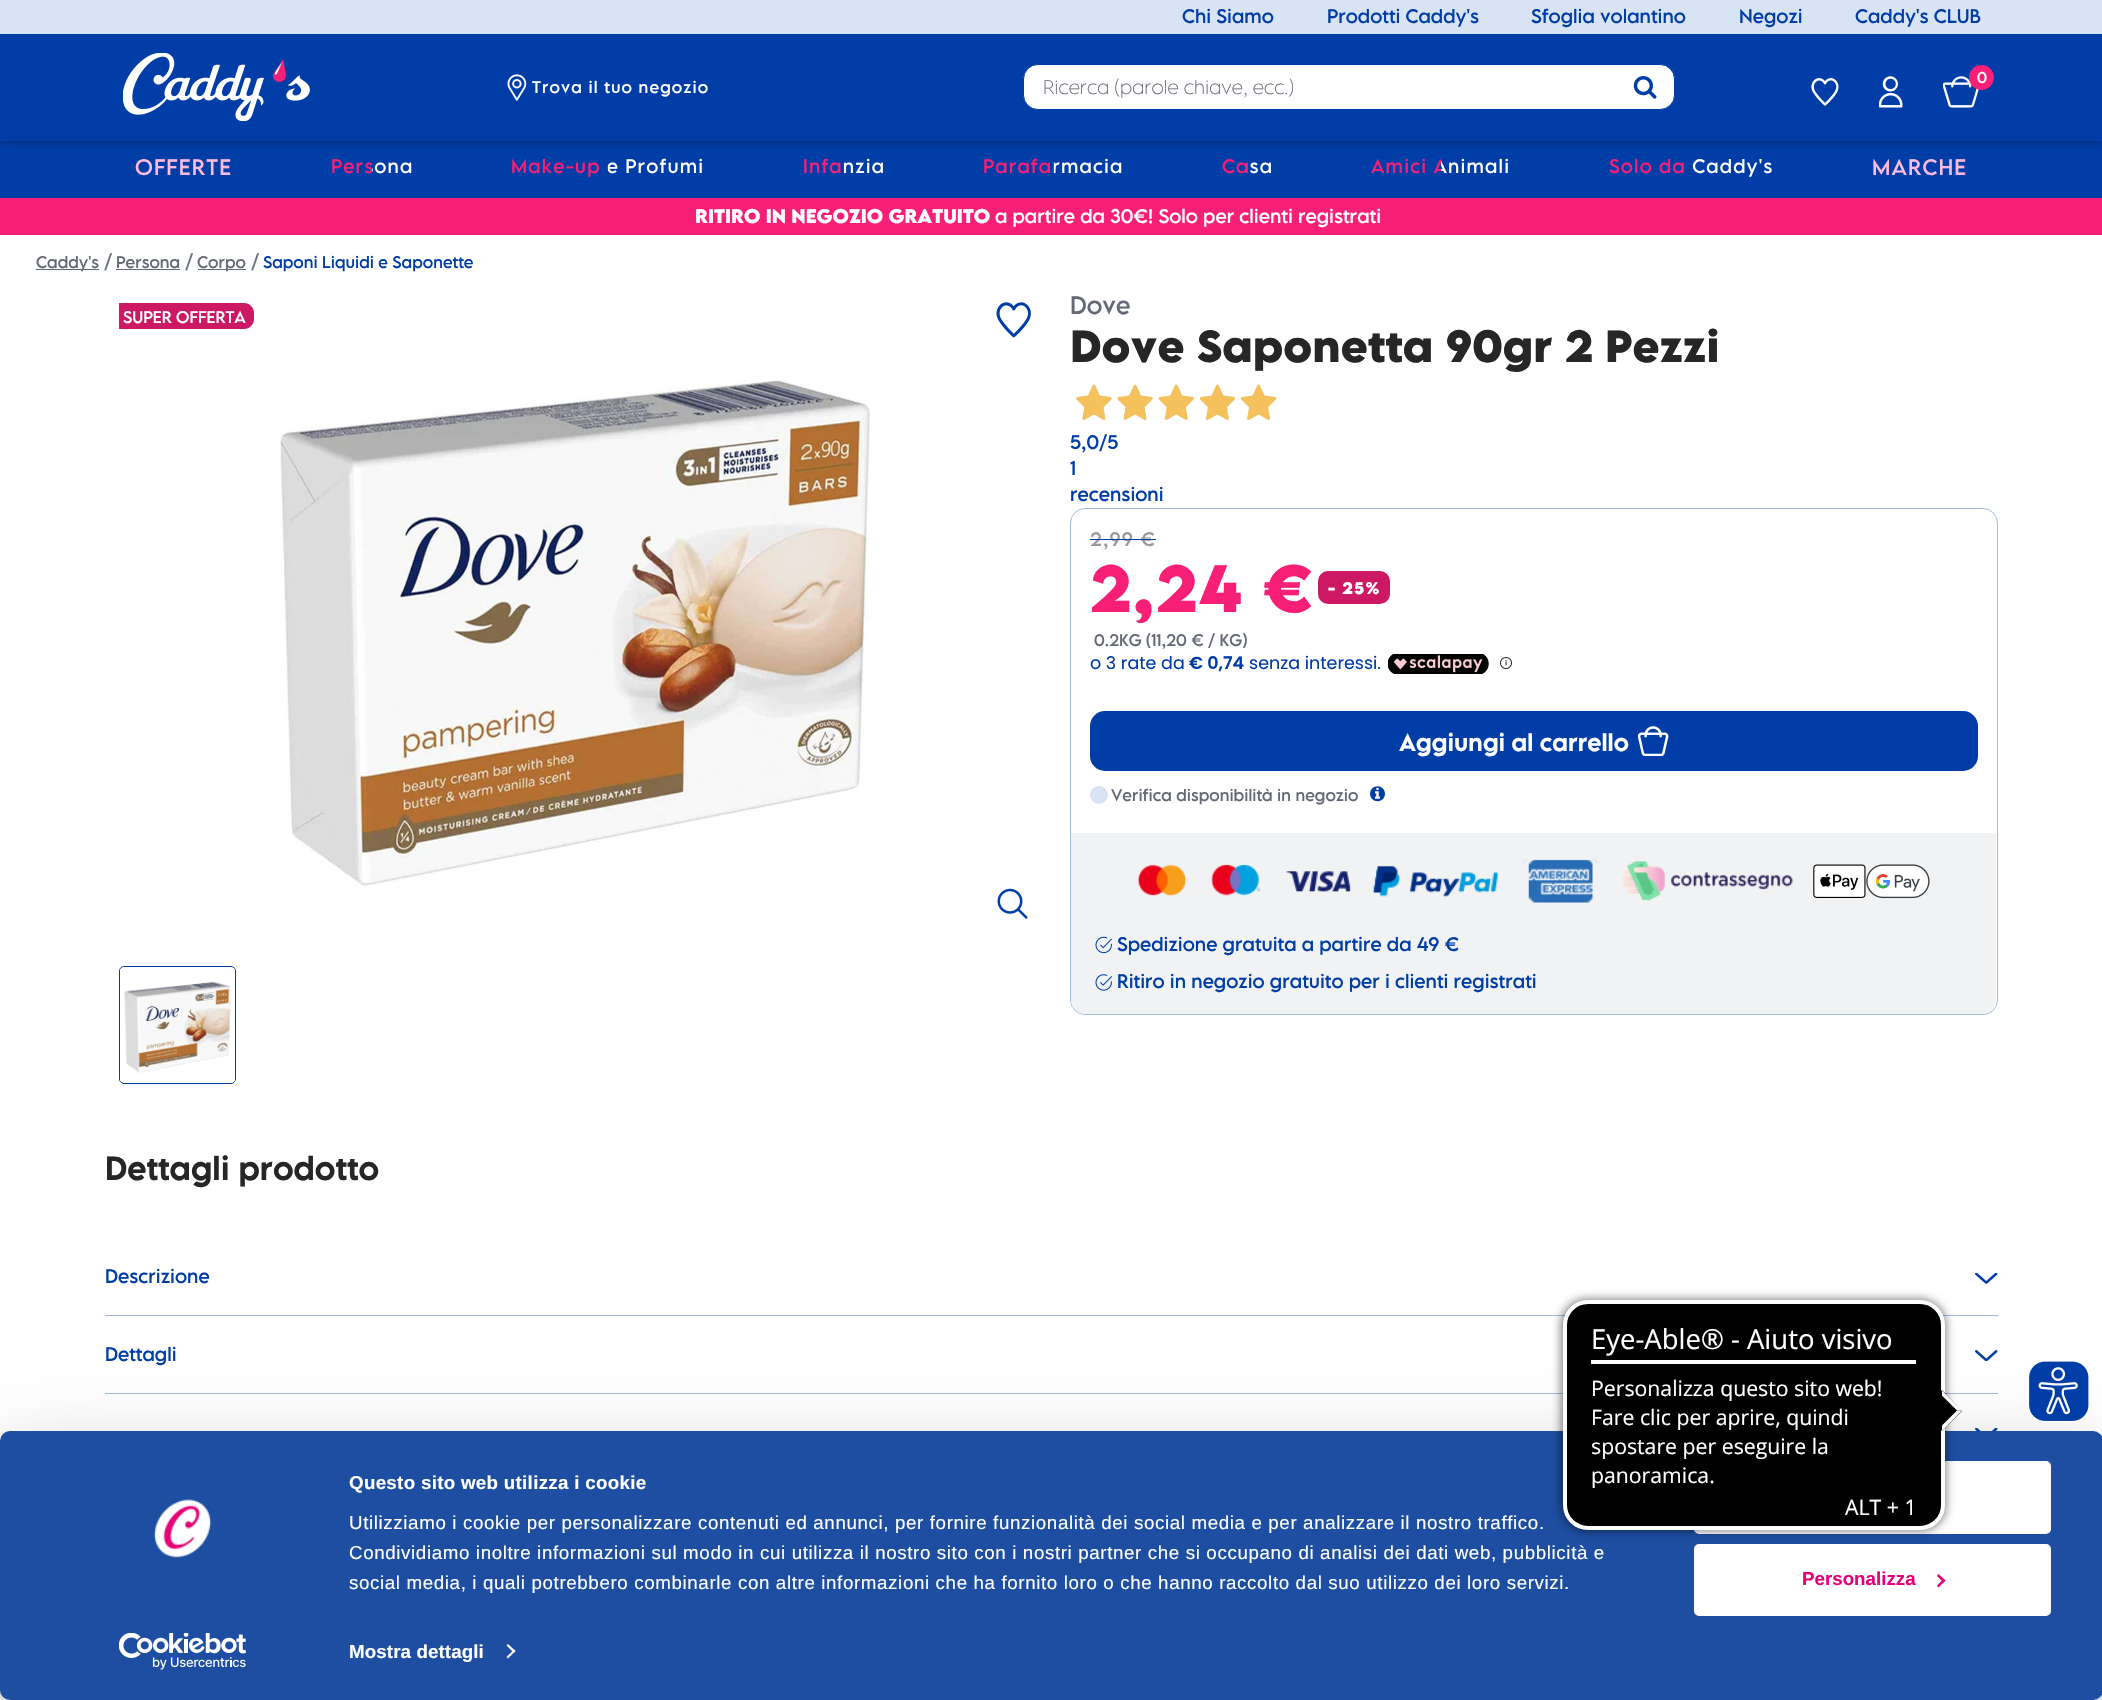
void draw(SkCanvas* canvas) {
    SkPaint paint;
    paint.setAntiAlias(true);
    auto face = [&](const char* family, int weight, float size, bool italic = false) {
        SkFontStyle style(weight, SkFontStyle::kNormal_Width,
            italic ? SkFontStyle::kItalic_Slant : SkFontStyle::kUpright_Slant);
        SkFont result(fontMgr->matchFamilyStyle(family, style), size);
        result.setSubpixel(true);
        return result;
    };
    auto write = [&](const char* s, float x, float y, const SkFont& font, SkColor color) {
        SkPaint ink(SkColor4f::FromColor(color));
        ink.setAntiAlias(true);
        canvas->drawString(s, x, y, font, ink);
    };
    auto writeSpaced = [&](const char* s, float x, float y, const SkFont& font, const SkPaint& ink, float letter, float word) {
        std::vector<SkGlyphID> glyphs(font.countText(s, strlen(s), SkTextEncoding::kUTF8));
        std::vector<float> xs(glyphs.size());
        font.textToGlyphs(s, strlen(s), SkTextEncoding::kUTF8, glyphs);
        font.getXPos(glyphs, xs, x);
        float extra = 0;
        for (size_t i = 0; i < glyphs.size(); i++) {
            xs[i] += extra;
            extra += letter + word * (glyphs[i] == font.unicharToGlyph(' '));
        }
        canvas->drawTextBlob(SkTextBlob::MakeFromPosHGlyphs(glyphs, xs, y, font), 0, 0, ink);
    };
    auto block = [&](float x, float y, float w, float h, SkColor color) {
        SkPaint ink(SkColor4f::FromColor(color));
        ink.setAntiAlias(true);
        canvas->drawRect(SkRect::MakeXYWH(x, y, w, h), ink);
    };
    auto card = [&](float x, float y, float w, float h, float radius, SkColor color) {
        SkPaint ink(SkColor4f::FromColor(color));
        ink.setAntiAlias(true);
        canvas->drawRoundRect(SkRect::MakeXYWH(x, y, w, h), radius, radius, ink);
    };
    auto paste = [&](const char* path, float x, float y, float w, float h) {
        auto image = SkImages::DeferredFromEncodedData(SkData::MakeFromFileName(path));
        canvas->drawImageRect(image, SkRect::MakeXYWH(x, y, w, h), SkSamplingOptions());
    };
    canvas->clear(SK_ColorWHITE);
    block(0, 141, 2102, 57, SkColorSetRGB(0, 61, 166));
    paint.setColor(SkColorSetARGB(41, 0, 0, 0));
    paint.setMaskFilter(SkMaskFilter::MakeBlur(kNormal_SkBlurStyle, 3));
    canvas->drawRect(SkRect::MakeXYWH(0, 4, 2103, 141), paint);
    paint.setMaskFilter(nullptr);
    block(0, 34, 2102, 107, SkColorSetRGB(0, 61, 166));
    block(0, 0, 2102, 34, SkColorSetRGB(216, 227, 243));
    auto kFont1 = face("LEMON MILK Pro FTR", 400, 17.5f);
    write("Chi Siamo", 1182, 23, kFont1, SkColorSetRGB(0, 61, 166));
    write("Prodotti Caddy's", 1327, 23, kFont1, SkColorSetRGB(0, 61, 166));
    write("Sfoglia volantino", 1531, 23, kFont1, SkColorSetRGB(0, 61, 166));
    write("Negozi", 1739, 23, kFont1, SkColorSetRGB(0, 61, 166));
    write("Caddy's CLUB", 1855, 23, kFont1, SkColorSetRGB(0, 61, 166));
    paste("pic1.png", 123, 53, 187, 68);
    paste("pic2.png", 507, 74, 20, 27);
    auto kFont2 = face("LEMON MILK Pro FTR", 400, 15);
    paint.setColor(SK_ColorWHITE);
    writeSpaced("Trova il tuo negozio", 532, 93, kFont2, paint, 1.1f, 0);
    canvas->drawRoundRect(SkRect::MakeXYWH(1023.5f, 64.5f, 651, 45), 14.5f, 14.5f, paint);
    paint.setStyle(SkPaint::kStroke_Style);
    paint.setStrokeWidth(1);
    paint.setColor(SkColorSetRGB(0, 61, 166));
    canvas->drawRoundRect(SkRect::MakeXYWH(1023.5f, 64.5f, 651, 45), 14.5f, 14.5f, paint);
    auto kFont3 = face("LEMON MILK Pro FTR", 200, 17.5f);
    write("Ricerca (parole chiave, ecc.)", 1043, 94, kFont3, SkColorSetRGB(100, 105, 118));
    paste("pic3.png", 1633, 76, 24, 23);
    paste("pic4.png", 1811, 78, 28, 28);
    paste("pic5.png", 1879, 76, 24, 32);
    paste("pic6.png", 1943, 76, 36, 32);
    paint.setStyle(SkPaint::kFill_Style);
    paint.setColor(SkColorSetRGB(248, 31, 118));
    canvas->drawCircle(1981.5f, 77.5f, 12.5f, paint);
    auto kFont4 = face("LEMON MILK Pro FTR", 400, 14);
    write("0", 1977, 83, kFont4, SK_ColorWHITE);
    auto kFont5 = face("LEMON MILK Pro FTR", 400, 20);
    paint.setColor(SkColorSetRGB(255, 187, 221));
    writeSpaced("OFFERTE", 135, 175, kFont5, paint, 1.1f, 0);
    {
        const SkColor colors[] = {SkColorSetRGB(248, 31, 118), SkColorSetRGB(248, 31, 118), SK_ColorWHITE};
        const float stops[] = {0, 0.5f, 0.5f};
        const SkPoint ends[] = {{282, 167}, {462, 167}};
        paint.setShader(SkGradientShader::MakeLinear(ends, colors, stops, 3, SkTileMode::kClamp));
        paint.setAlpha(255);
    }
    writeSpaced("Persona", 331, 173, kFont1, paint, 1.1f, 0);
    {
        const SkColor colors[] = {SkColorSetRGB(248, 31, 118), SkColorSetRGB(248, 31, 118), SK_ColorWHITE};
        const float stops[] = {0, 0.5f, 0.5f};
        const SkPoint ends[] = {{462, 167}, {754, 167}};
        paint.setShader(SkGradientShader::MakeLinear(ends, colors, stops, 3, SkTileMode::kClamp));
        paint.setAlpha(255);
    }
    writeSpaced("Make-up e Profumi", 511, 173, kFont1, paint, 1.1f, 0);
    {
        const SkColor colors[] = {SkColorSetRGB(248, 31, 118), SkColorSetRGB(248, 31, 118), SK_ColorWHITE};
        const float stops[] = {0, 0.5f, 0.5f};
        const SkPoint ends[] = {{754, 167}, {934, 167}};
        paint.setShader(SkGradientShader::MakeLinear(ends, colors, stops, 3, SkTileMode::kClamp));
        paint.setAlpha(255);
    }
    writeSpaced("Infanzia", 803, 173, kFont1, paint, 1.1f, 0);
    {
        const SkColor colors[] = {SkColorSetRGB(248, 31, 118), SkColorSetRGB(248, 31, 118), SK_ColorWHITE};
        const float stops[] = {0, 0.5f, 0.5f};
        const SkPoint ends[] = {{934, 167}, {1173, 167}};
        paint.setShader(SkGradientShader::MakeLinear(ends, colors, stops, 3, SkTileMode::kClamp));
        paint.setAlpha(255);
    }
    writeSpaced("Parafarmacia", 983, 173, kFont1, paint, 1.1f, 0);
    {
        const SkColor colors[] = {SkColorSetRGB(248, 31, 118), SkColorSetRGB(248, 31, 118), SK_ColorWHITE};
        const float stops[] = {0, 0.5f, 0.5f};
        const SkPoint ends[] = {{1173, 167}, {1322, 167}};
        paint.setShader(SkGradientShader::MakeLinear(ends, colors, stops, 3, SkTileMode::kClamp));
        paint.setAlpha(255);
    }
    writeSpaced("Casa", 1222, 173, kFont1, paint, 1.1f, 0);
    {
        const SkColor colors[] = {SkColorSetRGB(248, 31, 118), SkColorSetRGB(248, 31, 118), SK_ColorWHITE};
        const float stops[] = {0, 0.5f, 0.5f};
        const SkPoint ends[] = {{1322, 167}, {1560, 167}};
        paint.setShader(SkGradientShader::MakeLinear(ends, colors, stops, 3, SkTileMode::kClamp));
        paint.setAlpha(255);
    }
    writeSpaced("Amici Animali", 1371, 173, kFont1, paint, 1.1f, 0);
    {
        const SkColor colors[] = {SkColorSetRGB(248, 31, 118), SkColorSetRGB(248, 31, 118), SK_ColorWHITE};
        const float stops[] = {0, 0.5f, 0.5f};
        const SkPoint ends[] = {{1560, 167}, {1823, 167}};
        paint.setShader(SkGradientShader::MakeLinear(ends, colors, stops, 3, SkTileMode::kClamp));
        paint.setAlpha(255);
    }
    writeSpaced("Solo da Caddy's", 1609, 173, kFont1, paint, 1.1f, 0);
    paint.setShader(nullptr);
    paint.setColor(SkColorSetRGB(255, 187, 221));
    writeSpaced("MARCHE", 1872, 175, kFont5, paint, 1.1f, 0);
    block(0, 198, 2102, 37, SkColorSetRGB(248, 31, 118));
    auto kFont6 = face("LEMON MILK Pro FTR", 700, 17.5f);
    write("RITIRO IN NEGOZIO GRATUITO", 695, 223, kFont6, SK_ColorWHITE);
    write("a partire da 30€! Solo per clienti registrati", 995, 223, kFont1, SK_ColorWHITE);
    block(36, 269, 63, 1, SkColorSetRGB(100, 105, 118));
    write("Caddy's", 36, 268, kFont2, SkColorSetRGB(100, 105, 118));
    write("/", 104, 268, kFont1, SkColorSetRGB(108, 117, 125));
    write("Persona", 116, 268, kFont2, SkColorSetRGB(100, 105, 118));
    block(116, 269, 64, 1, SkColorSetRGB(100, 105, 118));
    write("/", 185, 268, kFont1, SkColorSetRGB(108, 117, 125));
    block(198, 269, 48, 1, SkColorSetRGB(100, 105, 118));
    write("Corpo", 197, 268, kFont2, SkColorSetRGB(100, 105, 118));
    write("/", 251, 268, kFont1, SkColorSetRGB(108, 117, 125));
    write("Saponi Liquidi e Saponette", 263, 268, kFont2, SkColorSetRGB(0, 61, 166));
    paint.setColor(SkColorSetRGB(205, 24, 100));
    canvas->drawPath(SkPathBuilder().moveTo(119, 303).lineTo(244, 303).cubicTo(249.5f, 303, 254, 307.5f, 254, 313).lineTo(254, 319).cubicTo(254, 324.5f, 249.5f, 329, 244, 329).lineTo(119, 329).close().detach(), paint);
    write("SUPER OFFERTA", 123, 323, kFont2, SK_ColorWHITE);
    paste("pic7.png", 996, 302, 35, 36);
    paste("pic8.png", 280, 380, 590, 506);
    paste("pic9.png", 997, 888, 31, 31);
    paint.setStyle(SkPaint::kStroke_Style);
    paint.setColor(SkColorSetRGB(0, 61, 166));
    canvas->drawRoundRect(SkRect::MakeXYWH(119.5f, 966.5f, 116, 117), 4.5f, 4.5f, paint);
    paste("pic10.png", 120, 967, 115, 116);
    auto kFont7 = face("LEMON MILK Pro FTR", 400, 22.5f);
    write("Dove", 1070, 314, kFont7, SkColorSetRGB(100, 105, 118));
    auto kFont8 = face("LEMON MILK Pro FTR", 700, 40);
    write("Dove Saponetta 90gr 2 Pezzi", 1070, 362, kFont8, SkColorSetRGB(38, 38, 38));
    paste("pic11.png", 1076, 384, 201, 36);
    write("5,0/5", 1070, 449, kFont1, SkColorSetRGB(0, 61, 166));
    write("1", 1070, 475, kFont1, SkColorSetRGB(0, 61, 166));
    write("recensioni", 1070, 501, kFont1, SkColorSetRGB(0, 61, 166));
    paint.setColor(SkColorSetRGB(159, 186, 226));
    canvas->drawRoundRect(SkRect::MakeXYWH(1070.5f, 508.5f, 927, 506), 14.5f, 14.5f, paint);
    paint.setStyle(SkPaint::kFill_Style);
    paint.setColor(SkColorSetRGB(153, 153, 153));
    writeSpaced("2,99 €", 1090, 546, kFont1, paint, 1.25f, 0);
    block(1090, 539, 66, 1, SkColorSetRGB(0, 61, 166));
    auto kFont9 = face("LEMON MILK Pro FTR", 700, 59);
    paint.setColor(SkColorSetRGB(248, 31, 118));
    writeSpaced("2,24 €", 1090, 612, kFont9, paint, 1.25f, 0);
    card(1318, 571, 72, 33, 10, SkColorSetRGB(205, 24, 100));
    auto kFont10 = face("LEMON MILK Pro FTR", 700, 15);
    paint.setColor(SK_ColorWHITE);
    writeSpaced("- 25%", 1328, 594, kFont10, paint, 1.25f, 0);
    write("0.2KG (11,20 € / KG)", 1094, 646, kFont2, SkColorSetRGB(100, 105, 118));
    auto kFont11 = face("Poppins", 400, 17.5f);
    write("o 3 rate da", 1090, 669, kFont11, SkColorSetRGB(0, 61, 166));
    auto kFont12 = face("Poppins", 600, 17.5f);
    write("€ 0,74", 1189, 669, kFont12, SkColorSetRGB(0, 61, 166));
    write("senza interessi.", 1249, 669, kFont11, SkColorSetRGB(0, 61, 166));
    paste("pic12.png", 1388, 654, 101, 20);
    paste("pic13.png", 1500, 657, 12, 12);
    paint.setColor(SkColorSetRGB(0, 61, 166));
    canvas->drawRoundRect(SkRect::MakeXYWH(1091.5f, 712.5f, 885, 57), 13.5f, 13.5f, paint);
    paint.setStyle(SkPaint::kStroke_Style);
    paint.setStrokeWidth(3);
    canvas->drawRoundRect(SkRect::MakeXYWH(1091.5f, 712.5f, 885, 57), 13.5f, 13.5f, paint);
    auto kFont13 = face("LEMON MILK Pro FTR", 500, 22);
    write("Aggiungi al carrello", 1399, 751, kFont13, SK_ColorWHITE);
    paste("pic14.png", 1638, 726, 31, 30);
    paint.setStyle(SkPaint::kFill_Style);
    paint.setColor(SkColorSetRGB(216, 227, 243));
    canvas->drawCircle(1099, 795, 9, paint);
    write("Verifica disponibilità in negozio", 1111, 801, kFont2, SkColorSetRGB(100, 105, 118));
    paste("pic15.png", 1370, 786, 15, 16);
    paint.setColor(SkColorSetRGB(241, 242, 244));
    canvas->drawPath(SkPathBuilder().moveTo(1071, 833).lineTo(1996, 833).lineTo(1996, 1000).cubicTo(1996, 1007.5f, 1989.5f, 1014, 1982, 1014).lineTo(1085, 1014).cubicTo(1077.5f, 1014, 1071, 1007.5f, 1071, 1000).close().detach(), paint);
    paste("pic16.png", 1137, 859, 656, 44);
    paste("pic17.png", 1813, 864, 53, 34);
    paste("pic18.png", 1866, 864, 64, 35);
    paste("pic19.png", 1095, 936, 17, 18);
    write("Spedizione gratuita a partire da 49 €", 1117, 951, kFont1, SkColorSetRGB(0, 61, 166));
    paste("pic20.png", 1095, 974, 17, 17);
    write("Ritiro in negozio gratuito per i clienti registrati", 1117, 988, kFont1, SkColorSetRGB(0, 61, 166));
    auto kFont14 = face("LEMON MILK Pro FTR", 500, 30);
    write("Dettagli prodotto", 105, 1180, kFont14, SkColorSetRGB(38, 38, 38));
    block(105, 1315, 1893, 1, SkColorSetRGB(159, 186, 226));
    write("Descrizione", 105, 1283, kFont1, SkColorSetRGB(0, 61, 166));
    paste("pic21.png", 1975, 1273, 23, 11);
    block(105, 1393, 1893, 1, SkColorSetRGB(159, 186, 226));
    write("Dettagli", 105, 1361, kFont1, SkColorSetRGB(0, 61, 166));
    paste("pic22.png", 1975, 1350, 23, 11);
    paste("pic23.png", 1975, 1428, 23, 3);
    paint.setColor(SkColorSetARGB(77, 0, 0, 0));
    paint.setMaskFilter(SkMaskFilter::MakeBlur(kNormal_SkBlurStyle, 44));
    canvas->drawRoundRect(SkRect::MakeXYWH(0, 1469, 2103, 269), 10, 10, paint);
    paint.setMaskFilter(nullptr);
    card(0, 1431, 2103, 269, 10, SkColorSetRGB(29, 78, 161));
    paint.setColor(SK_ColorWHITE);
    canvas->drawRoundRect(SkRect::MakeXYWH(1695.5f, 1462.5f, 354, 70), 3.5f, 3.5f, paint);
    paint.setStyle(SkPaint::kStroke_Style);
    canvas->drawRoundRect(SkRect::MakeXYWH(1695.5f, 1462.5f, 354, 70), 3.5f, 3.5f, paint);
    paint.setStyle(SkPaint::kFill_Style);
    canvas->drawRoundRect(SkRect::MakeXYWH(1695.5f, 1545.5f, 354, 69), 3.5f, 3.5f, paint);
    paint.setStyle(SkPaint::kStroke_Style);
    canvas->drawRoundRect(SkRect::MakeXYWH(1695.5f, 1545.5f, 354, 69), 3.5f, 3.5f, paint);
    paint.setStyle(SkPaint::kFill_Style);
    paint.setColor(SkColorSetARGB(128, 0, 0, 0));
    paint.setMaskFilter(SkMaskFilter::MakeBlur(kNormal_SkBlurStyle, 5));
    canvas->drawRoundRect(SkRect::MakeXYWH(1561, 1299, 385, 232), 26, 26, paint);
    paint.setMaskFilter(nullptr);
    paint.setColor(SK_ColorBLACK);
    canvas->drawRoundRect(SkRect::MakeXYWH(1565, 1302, 378, 226), 23, 23, paint);
    paint.setStyle(SkPaint::kStroke_Style);
    paint.setStrokeWidth(4);
    paint.setColor(SK_ColorWHITE);
    canvas->drawRoundRect(SkRect::MakeXYWH(1565, 1302, 378, 226), 23, 23, paint);
    block(1591, 1360, 325, 4, SK_ColorWHITE);
    auto kFont15 = face("Open Sans", 400, 27.5f);
    write("Eye-Able® - Aiuto visivo", 1591, 1349, kFont15, SK_ColorWHITE);
    auto kFont16 = face("Open Sans", 400, 21.25f);
    write("Personalizza questo sito web!", 1591, 1396, kFont16, SK_ColorWHITE);
    write("Fare clic per aprire, quindi", 1591, 1425, kFont16, SK_ColorWHITE);
    write("spostare per eseguire la", 1591, 1454, kFont16, SK_ColorWHITE);
    write("panoramica.", 1591, 1483, kFont16, SK_ColorWHITE);
    paint.setStyle(SkPaint::kFill_Style);
    paint.setColor(SK_ColorBLACK);
    canvas->drawPath(SkPathBuilder().moveTo(1942, 1390).lineTo(1962, 1411).lineTo(1942, 1431).lineTo(1922, 1411).close().detach(), paint);
    paint.setColor(SK_ColorWHITE);
    canvas->drawPath(SkPathBuilder().moveTo(1942, 1390.5f).lineTo(1962, 1410.5f).lineTo(1957, 1410.5f).lineTo(1942, 1395.5f).close().detach(), paint);
    canvas->drawPath(SkPathBuilder().moveTo(1962, 1410.5f).lineTo(1942, 1431).lineTo(1942, 1425.5f).lineTo(1957, 1410.5f).close().detach(), paint);
    write("ALT + 1", 1845, 1515, kFont16, SK_ColorWHITE);
    paste("pic24.png", 2028, 1361, 61, 62);
    paste("pic25.png", 153, 1499, 59, 59);
    paste("pic26.png", 119, 1633, 127, 37);
    auto kFont17 = face("Liberation Sans", 700, 18.75f);
    writeSpaced("Questo sito web utilizza i cookie", 349, 1489, kFont17, paint, 0.3f, 0);
    auto kFont18 = face("Liberation Sans", 400, 18.75f);
    writeSpaced("Utilizziamo i cookie per personalizzare contenuti ed annunci, per fornire funzionalità dei social media e per analizzare il nostro traffico.", 349, 1529, kFont18, paint, 0.62f, 0);
    writeSpaced("Condividiamo inoltre informazioni sul modo in cui utilizza il nostro sito con i nostri partner che si occupano di analisi dei dati web, pubblicità e", 349, 1559, kFont18, paint, 0.62f, 0);
    writeSpaced("social media, i quali potrebbero combinarle con altre informazioni che ha fornito loro o che hanno raccolto dal suo utilizzo dei loro servizi.", 349, 1589, kFont18, paint, 0.62f, 0);
    writeSpaced("Mostra dettagli", 349, 1658, kFont17, paint, 0.1f, 0);
    canvas->drawPath(SkPathBuilder().moveTo(508, 1644).lineTo(515.5f, 1651).lineTo(514, 1653).lineTo(506.5f, 1645.5f).close().detach(), paint);
    canvas->drawPath(SkPathBuilder().moveTo(514, 1649.5f).lineTo(515.5f, 1651).lineTo(508, 1658.5f).lineTo(506.5f, 1657).close().detach(), paint);
    write("Personalizza", 1802, 1585, kFont17, SkColorSetRGB(229, 1, 121));
    paint.setColor(SkColorSetRGB(229, 1, 121));
    canvas->drawPath(SkPathBuilder().moveTo(1938.5f, 1574).lineTo(1945.5f, 1580.5f).lineTo(1943.5f, 1582.5f).lineTo(1937, 1576).close().detach(), paint);
    canvas->drawPath(SkPathBuilder().moveTo(1943.5f, 1579).lineTo(1945.5f, 1580.5f).lineTo(1938.5f, 1587.5f).lineTo(1937, 1585.5f).close().detach(), paint);
}
